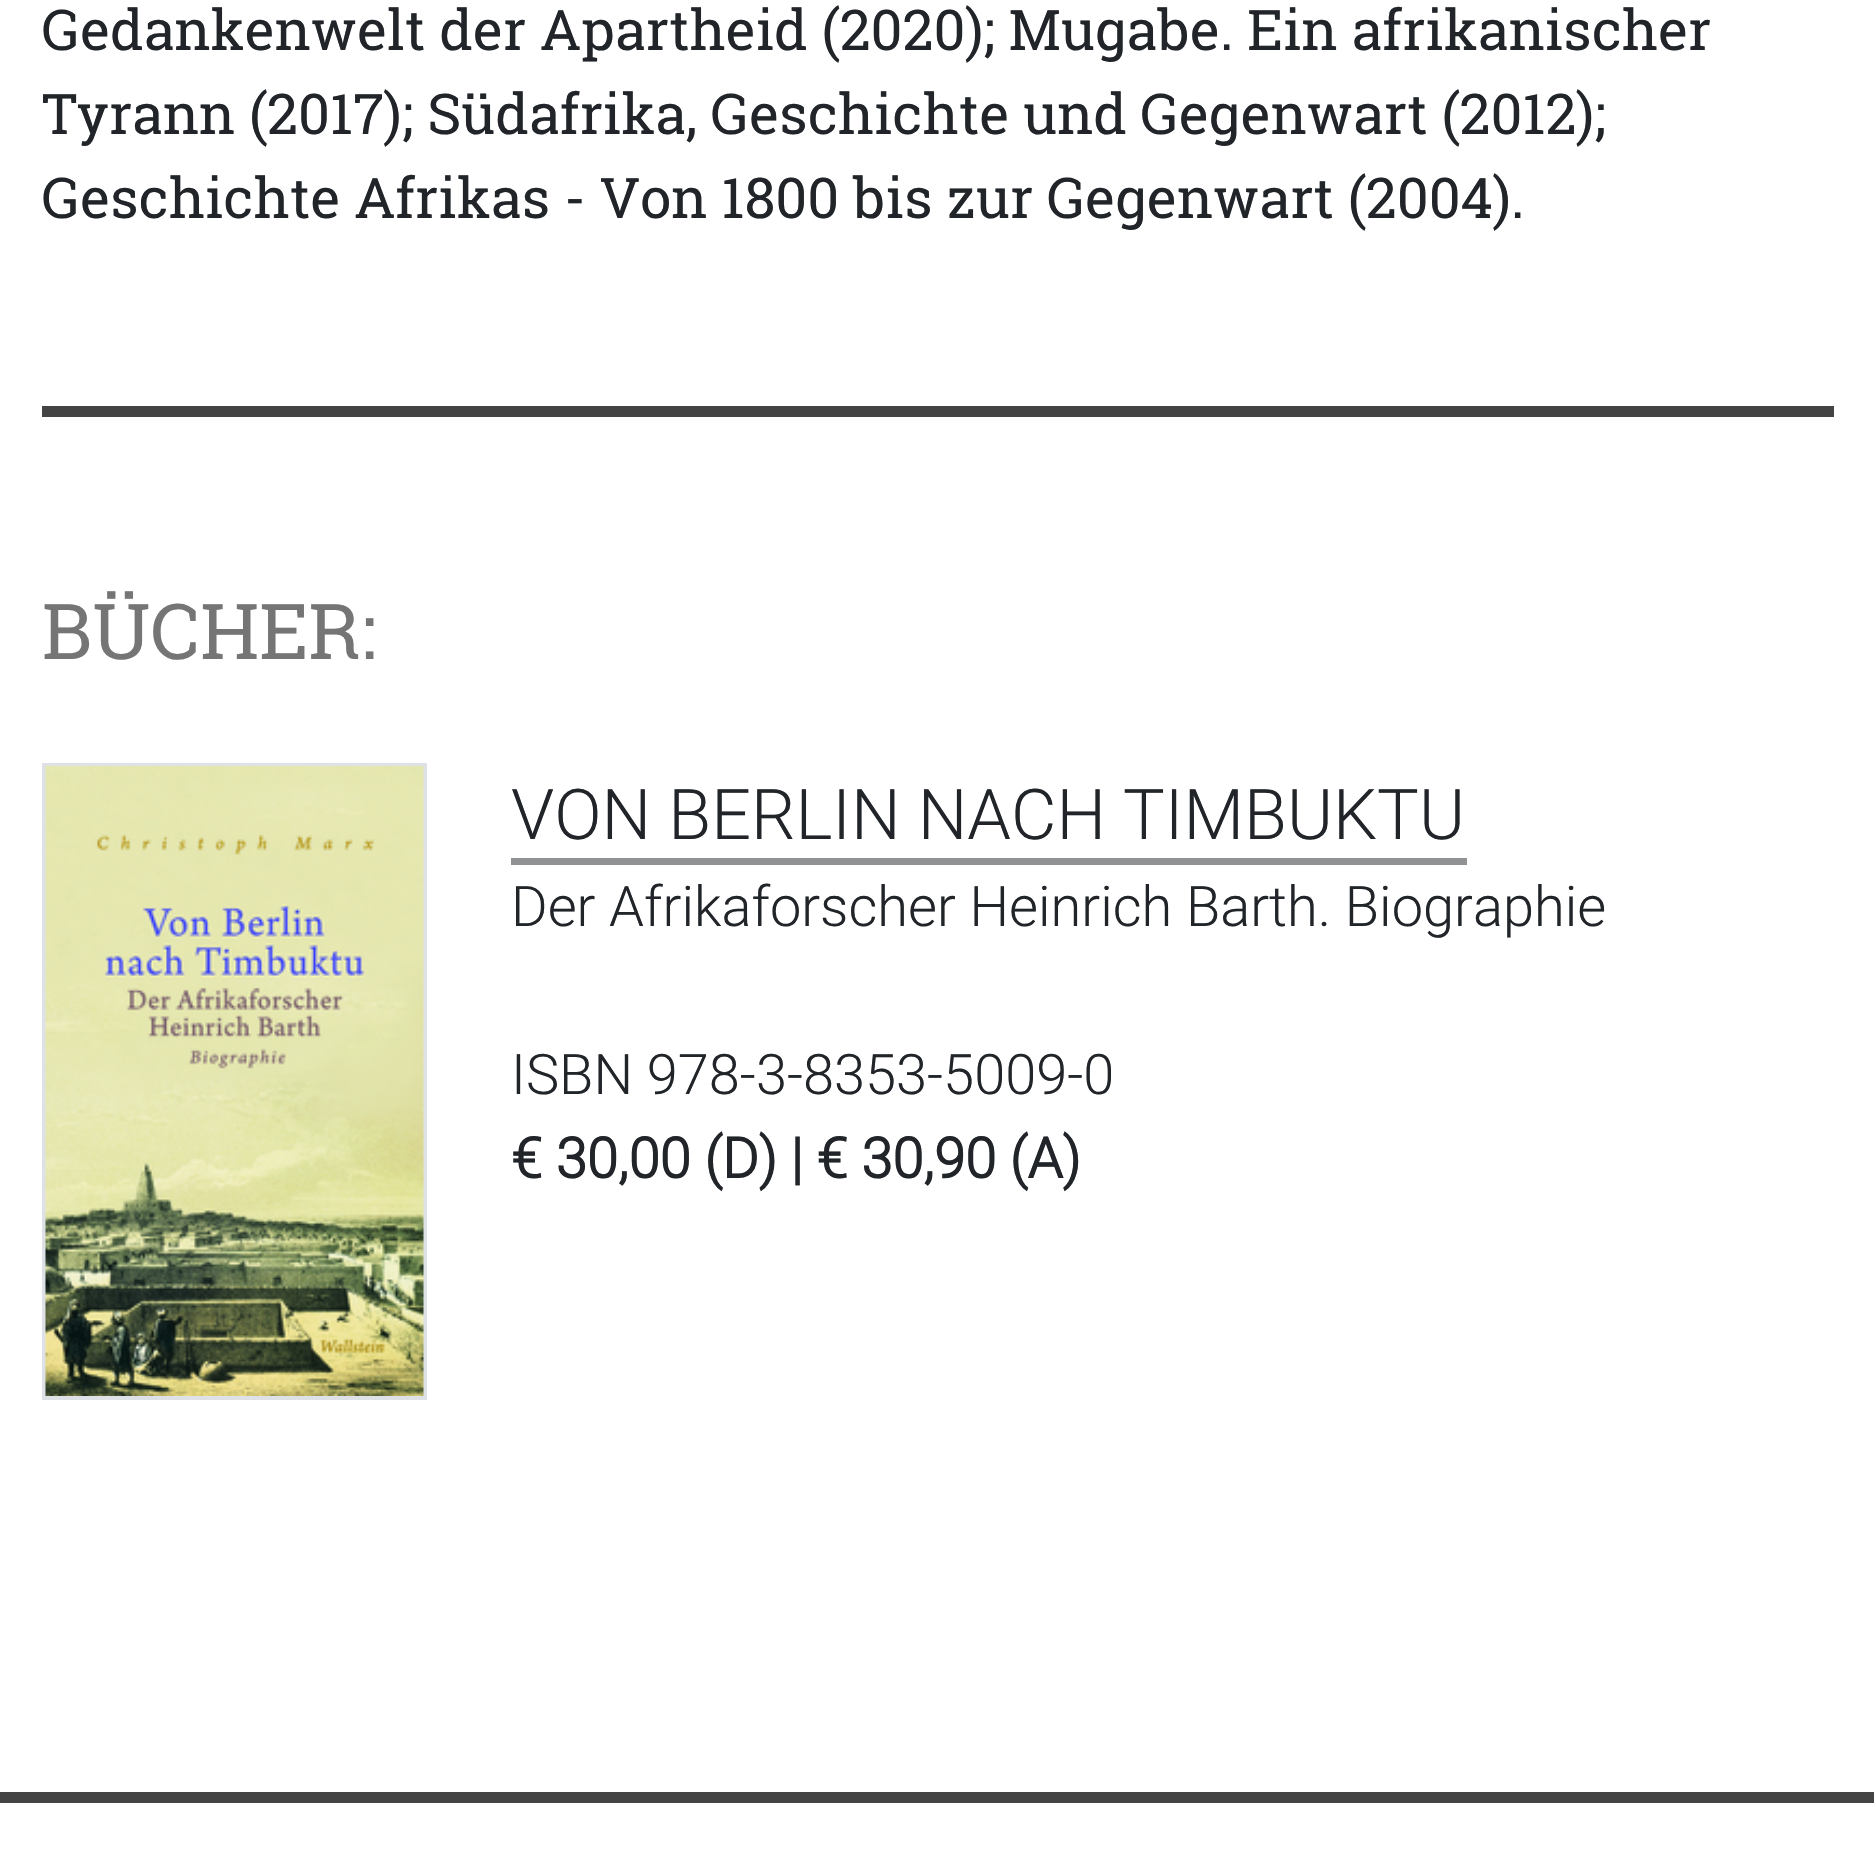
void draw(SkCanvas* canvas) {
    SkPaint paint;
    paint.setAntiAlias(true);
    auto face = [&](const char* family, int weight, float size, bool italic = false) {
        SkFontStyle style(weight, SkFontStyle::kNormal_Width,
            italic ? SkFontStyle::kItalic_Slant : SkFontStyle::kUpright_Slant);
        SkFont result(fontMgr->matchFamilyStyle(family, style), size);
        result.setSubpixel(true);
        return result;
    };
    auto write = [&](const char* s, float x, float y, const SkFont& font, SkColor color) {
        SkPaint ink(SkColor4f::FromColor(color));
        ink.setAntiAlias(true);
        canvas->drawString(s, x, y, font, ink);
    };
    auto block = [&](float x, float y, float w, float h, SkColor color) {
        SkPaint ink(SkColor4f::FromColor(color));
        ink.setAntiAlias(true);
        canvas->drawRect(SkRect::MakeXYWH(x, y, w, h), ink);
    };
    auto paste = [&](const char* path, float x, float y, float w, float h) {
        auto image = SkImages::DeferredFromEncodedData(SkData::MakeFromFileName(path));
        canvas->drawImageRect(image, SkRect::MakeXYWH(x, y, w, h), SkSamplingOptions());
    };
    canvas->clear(SK_ColorWHITE);
    auto kFont1 = face("Roboto Slab", 400, 56);
    write("Gedankenwelt der Apartheid (2020); Mugabe. Ein afrikanischer", 42, 50, kFont1, SkColorSetRGB(33, 37, 41));
    write("Tyrann (2017); Südafrika, Geschichte und Gegenwart (2012);", 42, 134, kFont1, SkColorSetRGB(33, 37, 41));
    write("Geschichte Afrikas - Von 1800 bis zur Gegenwart (2004).", 42, 218, kFont1, SkColorSetRGB(33, 37, 41));
    block(42, 406, 1792, 11, SkColorSetRGB(68, 68, 68));
    auto kFont2 = face("Roboto Slab", 400, 77);
    write("BÜCHER:", 42, 659, kFont2, SkColorSetRGB(117, 117, 117));
    paint.setStyle(SkPaint::kStroke_Style);
    paint.setStrokeWidth(4);
    paint.setColor(SkColorSetRGB(222, 226, 230));
    canvas->drawRect(SkRect::MakeXYWH(44, 765, 381, 633), paint);
    paste("pic1.png", 45, 766, 379, 630);
    auto kFont3 = face("Roboto", 300, 70);
    write("VON BERLIN NACH TIMBUKTU", 511, 839, kFont3, SkColorSetRGB(33, 37, 41));
    block(511, 858, 956, 7, SkColorSetRGB(144, 146, 148));
    auto kFont4 = face("Roboto", 300, 56);
    write("Der Afrikaforscher Heinrich Barth. Biographie", 511, 926, kFont4, SkColorSetRGB(33, 37, 41));
    write("ISBN 978-3-8353-5009-0", 511, 1094, kFont4, SkColorSetRGB(33, 37, 41));
    auto kFont5 = face("Roboto", 700, 56);
    write("€ 30,00 (D) | € 30,90 (A)", 511, 1178, kFont5, SkColorSetRGB(33, 37, 41));
    block(0, 1792, 1874, 11, SkColorSetRGB(68, 68, 68));
}
